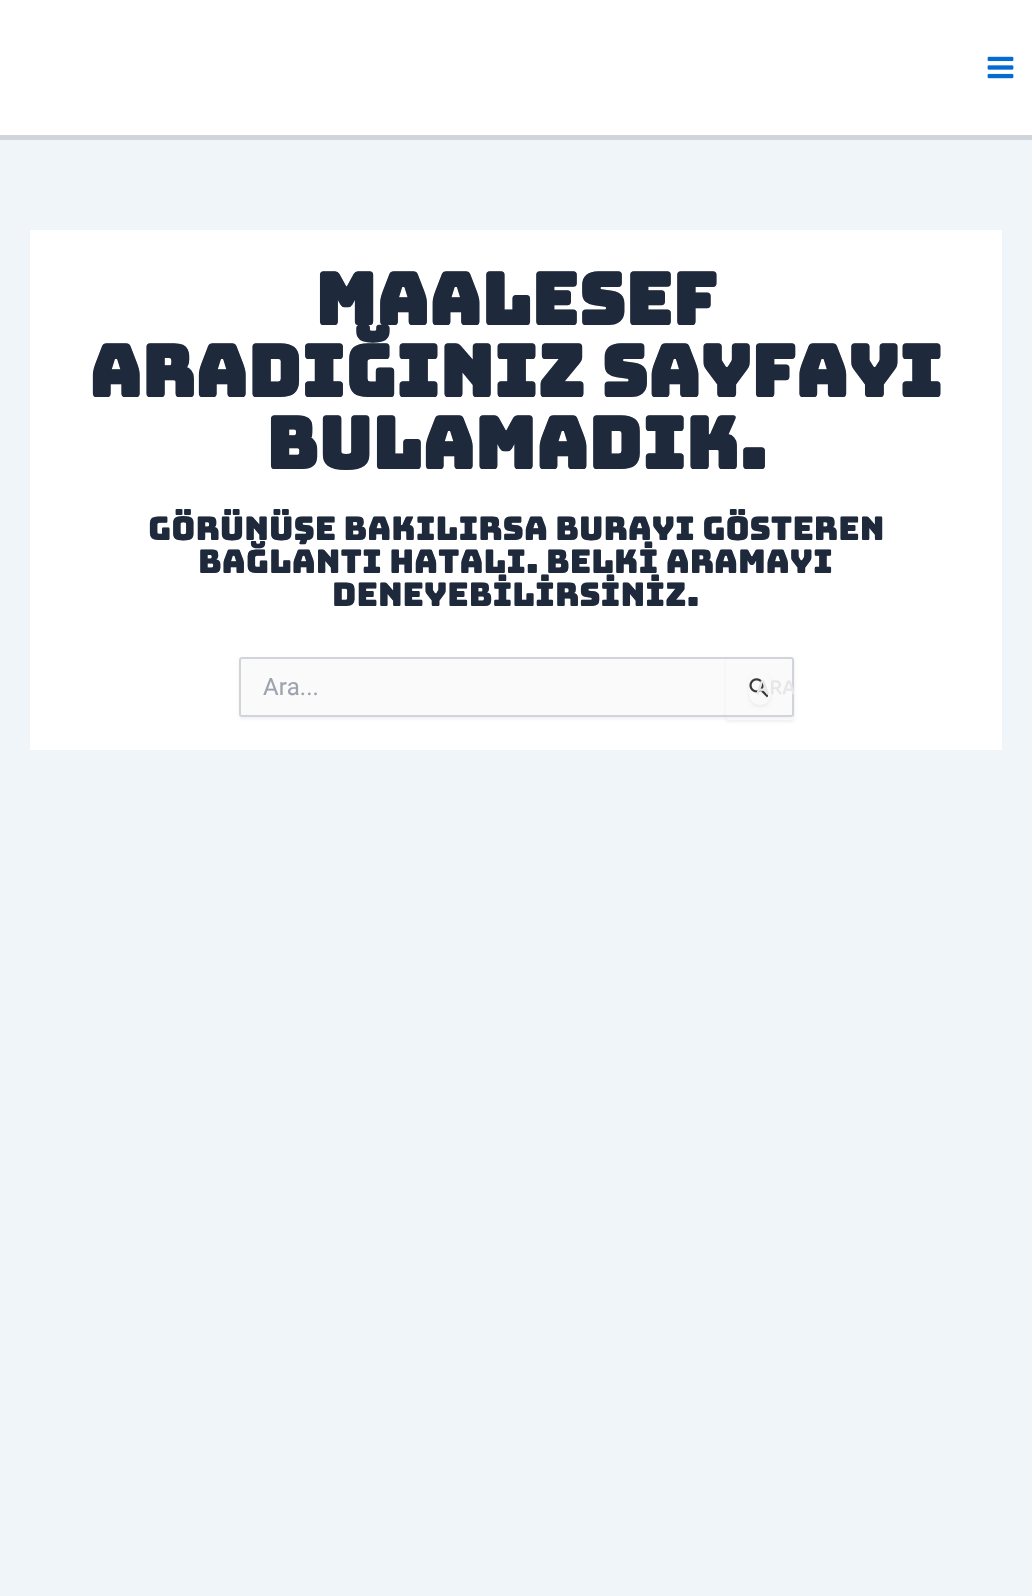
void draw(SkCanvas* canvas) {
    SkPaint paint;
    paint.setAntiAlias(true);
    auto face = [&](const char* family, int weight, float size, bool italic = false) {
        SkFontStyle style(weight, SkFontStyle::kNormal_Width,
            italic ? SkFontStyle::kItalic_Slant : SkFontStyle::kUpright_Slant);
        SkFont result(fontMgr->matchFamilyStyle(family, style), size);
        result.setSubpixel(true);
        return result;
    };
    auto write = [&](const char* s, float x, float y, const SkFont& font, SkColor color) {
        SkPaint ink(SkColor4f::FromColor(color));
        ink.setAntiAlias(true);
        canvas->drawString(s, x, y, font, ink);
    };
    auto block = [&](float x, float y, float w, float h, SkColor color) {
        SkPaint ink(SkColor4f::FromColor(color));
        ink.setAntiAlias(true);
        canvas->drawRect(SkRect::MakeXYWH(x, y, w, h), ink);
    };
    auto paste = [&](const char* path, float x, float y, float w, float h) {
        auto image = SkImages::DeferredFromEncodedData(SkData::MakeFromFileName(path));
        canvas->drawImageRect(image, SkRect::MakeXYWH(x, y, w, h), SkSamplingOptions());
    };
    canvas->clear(SkColorSetRGB(240, 245, 250));
    block(0, 0, 1032, 135, SK_ColorWHITE);
    block(0, 135, 1032, 5, SkColorSetRGB(209, 213, 219));
    paste("pic1.png", 987, 56, 27, 23);
    block(30, 230, 972, 520, SK_ColorWHITE);
    auto kFont1 = face("Bungee", 700, 72);
    write("MAALESEF", 315, 325, kFont1, SkColorSetRGB(30, 41, 59));
    write("ARADIĞINIZ SAYFAYI", 89, 397, kFont1, SkColorSetRGB(30, 41, 59));
    write("BULAMADIK.", 266, 469, kFont1, SkColorSetRGB(30, 41, 59));
    auto kFont2 = face("Bungee", 400, 32.8f);
    write("GÖRÜNÜŞE BAKILIRSA BURAYI GÖSTEREN", 148, 540, kFont2, SkColorSetRGB(30, 41, 59));
    write("BAĞLANTI HATALI. BELKİ ARAMAYI", 198, 573, kFont2, SkColorSetRGB(30, 41, 59));
    write("DENEYEBİLİRSİNİZ.", 332, 606, kFont2, SkColorSetRGB(30, 41, 59));
    paint.setColor(SkColorSetARGB(13, 0, 0, 0));
    paint.setMaskFilter(SkMaskFilter::MakeBlur(kNormal_SkBlurStyle, 1.5f));
    canvas->drawRoundRect(SkRect::MakeXYWH(239, 659, 555, 60), 3, 3, paint);
    paint.setMaskFilter(nullptr);
    paint.setColor(SkColorSetRGB(250, 250, 250));
    canvas->drawRoundRect(SkRect::MakeXYWH(240, 658, 553, 58), 2, 2, paint);
    paint.setStyle(SkPaint::kStroke_Style);
    paint.setStrokeWidth(2);
    paint.setColor(SkColorSetRGB(209, 213, 219));
    canvas->drawRoundRect(SkRect::MakeXYWH(240, 658, 553, 58), 2, 2, paint);
    auto kFont3 = face("Roboto", 400, 24);
    write("Ara...", 263, 695, kFont3, SkColorSetRGB(156, 163, 175));
    canvas->save();
    canvas->clipPath(SkPathBuilder(SkPathFillType::kEvenOdd).moveTo(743, 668).lineTo(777, 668).lineTo(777, 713).lineTo(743, 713).close().moveTo(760, 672).cubicTo(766, 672, 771, 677, 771, 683).lineTo(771, 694).cubicTo(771, 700, 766, 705, 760, 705).cubicTo(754, 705, 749, 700, 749, 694).lineTo(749, 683).cubicTo(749, 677, 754, 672, 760, 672).close().detach(), true);
    paint.setStyle(SkPaint::kFill_Style);
    paint.setColor(SkColorSetARGB(13, 0, 0, 0));
    paint.setMaskFilter(SkMaskFilter::MakeBlur(kNormal_SkBlurStyle, 1.5f));
    canvas->drawRoundRect(SkRect::MakeXYWH(749, 674, 22, 33), 11, 11, paint);
    paint.setMaskFilter(nullptr);
    canvas->restore();
    paste("pic2.png", 749, 678, 19, 20);
    canvas->save();
    canvas->clipPath(SkPathBuilder(SkPathFillType::kEvenOdd).moveTo(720, 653).lineTo(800, 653).lineTo(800, 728).lineTo(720, 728).close().moveTo(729, 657).lineTo(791, 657).cubicTo(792.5f, 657, 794, 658.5f, 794, 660).lineTo(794, 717).cubicTo(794, 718.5f, 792.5f, 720, 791, 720).lineTo(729, 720).cubicTo(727.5f, 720, 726, 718.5f, 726, 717).lineTo(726, 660).cubicTo(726, 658.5f, 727.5f, 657, 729, 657).close().detach(), true);
    paint.setMaskFilter(SkMaskFilter::MakeBlur(kNormal_SkBlurStyle, 1.5f));
    canvas->drawRoundRect(SkRect::MakeXYWH(726, 659, 68, 63), 3, 3, paint);
    paint.setMaskFilter(nullptr);
    canvas->restore();
    canvas->save();
    canvas->clipPath(SkPathBuilder().moveTo(729, 657).lineTo(791, 657).cubicTo(792.5f, 657, 794, 658.5f, 794, 660).lineTo(794, 717).cubicTo(794, 718.5f, 792.5f, 720, 791, 720).lineTo(729, 720).cubicTo(727.5f, 720, 726, 718.5f, 726, 717).lineTo(726, 660).cubicTo(726, 658.5f, 727.5f, 657, 729, 657).close().detach(), true);
    auto kFont4 = face("Baloo 2", 500, 22);
    write("ARA", 756, 694, kFont4, SkColorSetRGB(231, 231, 231));
    canvas->restore();
}
